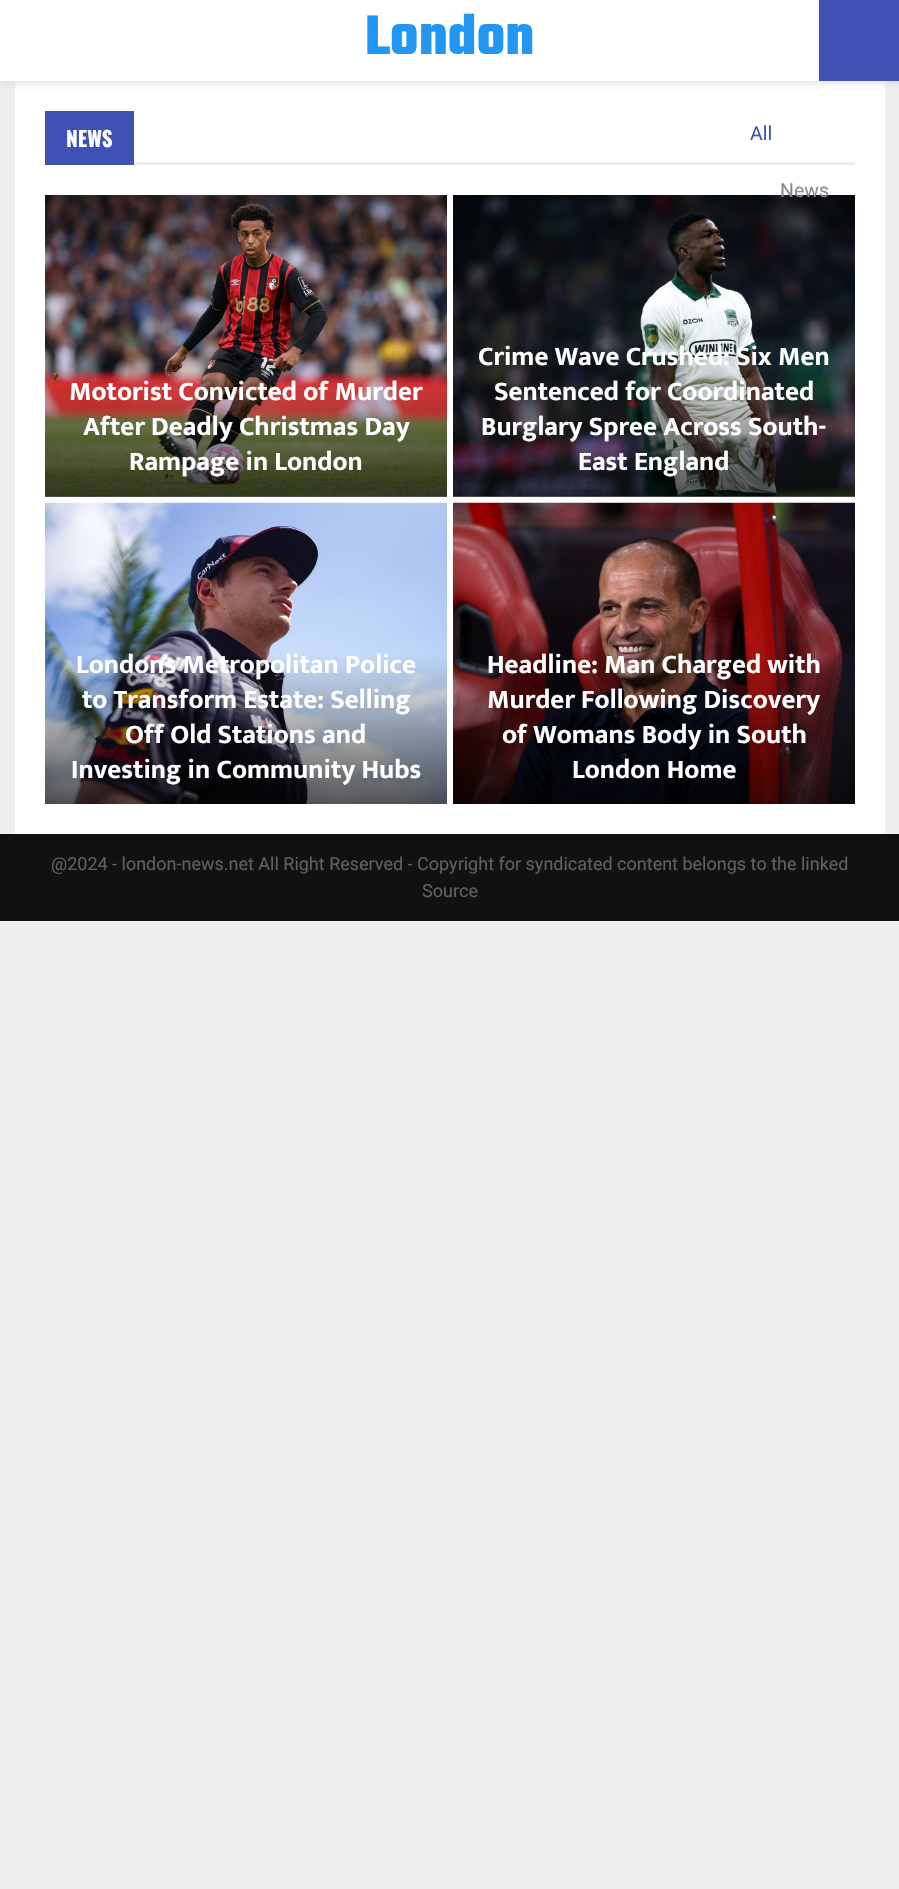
void draw(SkCanvas* canvas) {
    SkPaint paint;
    paint.setAntiAlias(true);
    auto face = [&](const char* family, int weight, float size, bool italic = false) {
        SkFontStyle style(weight, SkFontStyle::kNormal_Width,
            italic ? SkFontStyle::kItalic_Slant : SkFontStyle::kUpright_Slant);
        SkFont result(fontMgr->matchFamilyStyle(family, style), size);
        result.setSubpixel(true);
        return result;
    };
    auto write = [&](const char* s, float x, float y, const SkFont& font, SkColor color) {
        SkPaint ink(SkColor4f::FromColor(color));
        ink.setAntiAlias(true);
        canvas->drawString(s, x, y, font, ink);
    };
    auto block = [&](float x, float y, float w, float h, SkColor color) {
        SkPaint ink(SkColor4f::FromColor(color));
        ink.setAntiAlias(true);
        canvas->drawRect(SkRect::MakeXYWH(x, y, w, h), ink);
    };
    auto paste = [&](const char* path, float x, float y, float w, float h) {
        auto image = SkImages::DeferredFromEncodedData(SkData::MakeFromFileName(path));
        canvas->drawImageRect(image, SkRect::MakeXYWH(x, y, w, h), SkSamplingOptions());
    };
    canvas->clear(SkColorSetRGB(238, 238, 238));
    block(15, 81, 870, 753, SK_ColorWHITE);
    paint.setColor(SkColorSetARGB(117, 190, 190, 190));
    paint.setMaskFilter(SkMaskFilter::MakeBlur(kNormal_SkBlurStyle, 4));
    canvas->drawRect(SkRect::MakeXYWH(0, 2, 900, 81), paint);
    paint.setMaskFilter(nullptr);
    block(0, 0, 819, 81, SK_ColorWHITE);
    auto kFont1 = face("Teko", 700, 60);
    write("London", 365, 54, kFont1, SkColorSetRGB(33, 150, 243));
    block(819, 0, 80, 81, SkColorSetRGB(63, 81, 181));
    block(134, 162, 721, 3, SkColorSetRGB(236, 236, 236));
    block(45, 111, 89, 54, SkColorSetRGB(63, 81, 181));
    auto kFont2 = face("Oswald", 700, 21);
    write("NEWS", 66, 147, kFont2, SK_ColorWHITE);
    auto kFont3 = face("Roboto", 400, 19.5f);
    write("All", 750, 140, kFont3, SkColorSetRGB(63, 81, 181));
    block(453, 496, 402, 1, SkColorSetRGB(245, 245, 245));
    paste("pic2.png", 453, 195, 402, 302);
    write("News", 780, 197, kFont3, SkColorSetRGB(136, 136, 136));
    block(45, 496, 402, 1, SkColorSetRGB(245, 245, 245));
    paste("pic1.png", 45, 195, 402, 302);
    {
        const SkColor colors[] = {SkColorSetARGB(0, 0, 0, 0), SkColorSetARGB(166, 0, 0, 0)};
        const float stops[] = {0.5f, 1};
        const SkPoint ends[] = {{246, 195}, {246, 497}};
        paint.setShader(SkGradientShader::MakeLinear(ends, colors, stops, 2, SkTileMode::kClamp));
        paint.setAlpha(255);
    }
    canvas->drawRect(SkRect::MakeXYWH(45, 351, 402, 146), paint);
    auto kFont4 = face("Mukta Vaani", 700, 27);
    write("Motorist Convicted of Murder", 69, 400, kFont4, SK_ColorWHITE);
    write("After Deadly Christmas Day", 83, 435, kFont4, SK_ColorWHITE);
    write("Rampage in London", 129, 470, kFont4, SK_ColorWHITE);
    {
        const SkColor colors[] = {SkColorSetARGB(0, 0, 0, 0), SkColorSetARGB(166, 0, 0, 0)};
        const float stops[] = {0.5f, 1};
        const SkPoint ends[] = {{654, 195}, {654, 497}};
        paint.setShader(SkGradientShader::MakeLinear(ends, colors, stops, 2, SkTileMode::kClamp));
        paint.setAlpha(255);
    }
    canvas->drawRect(SkRect::MakeXYWH(453, 351, 402, 146), paint);
    write("Crime Wave Crushed: Six Men", 478, 365, kFont4, SK_ColorWHITE);
    write("Sentenced for Coordinated", 494, 400, kFont4, SK_ColorWHITE);
    write("Burglary Spree Across South-", 481, 435, kFont4, SK_ColorWHITE);
    write("East England", 578, 470, kFont4, SK_ColorWHITE);
    paste("pic3.png", 45, 502, 402, 302);
    write("Londons Metropolitan Police", 76, 673, kFont4, SK_ColorWHITE);
    write("to Transform Estate: Selling", 82, 708, kFont4, SK_ColorWHITE);
    write("Off Old Stations and", 125, 743, kFont4, SK_ColorWHITE);
    write("Investing in Community Hubs", 71, 778, kFont4, SK_ColorWHITE);
    paste("pic4.png", 453, 502, 402, 302);
    write("Headline: Man Charged with", 487, 673, kFont4, SK_ColorWHITE);
    write("Murder Following Discovery", 487, 708, kFont4, SK_ColorWHITE);
    write("of Womans Body in South", 502, 743, kFont4, SK_ColorWHITE);
    write("London Home", 572, 778, kFont4, SK_ColorWHITE);
    block(0, 834, 899, 87, SkColorSetRGB(17, 17, 17));
    auto kFont5 = face("Roboto", 400, 18);
    write("@2024 - london-news.net All Right Reserved - Copyright for syndicated content belongs to the linked", 51, 870, kFont5, SkColorSetRGB(97, 97, 97));
    write("Source", 422, 897, kFont5, SkColorSetRGB(97, 97, 97));
}
